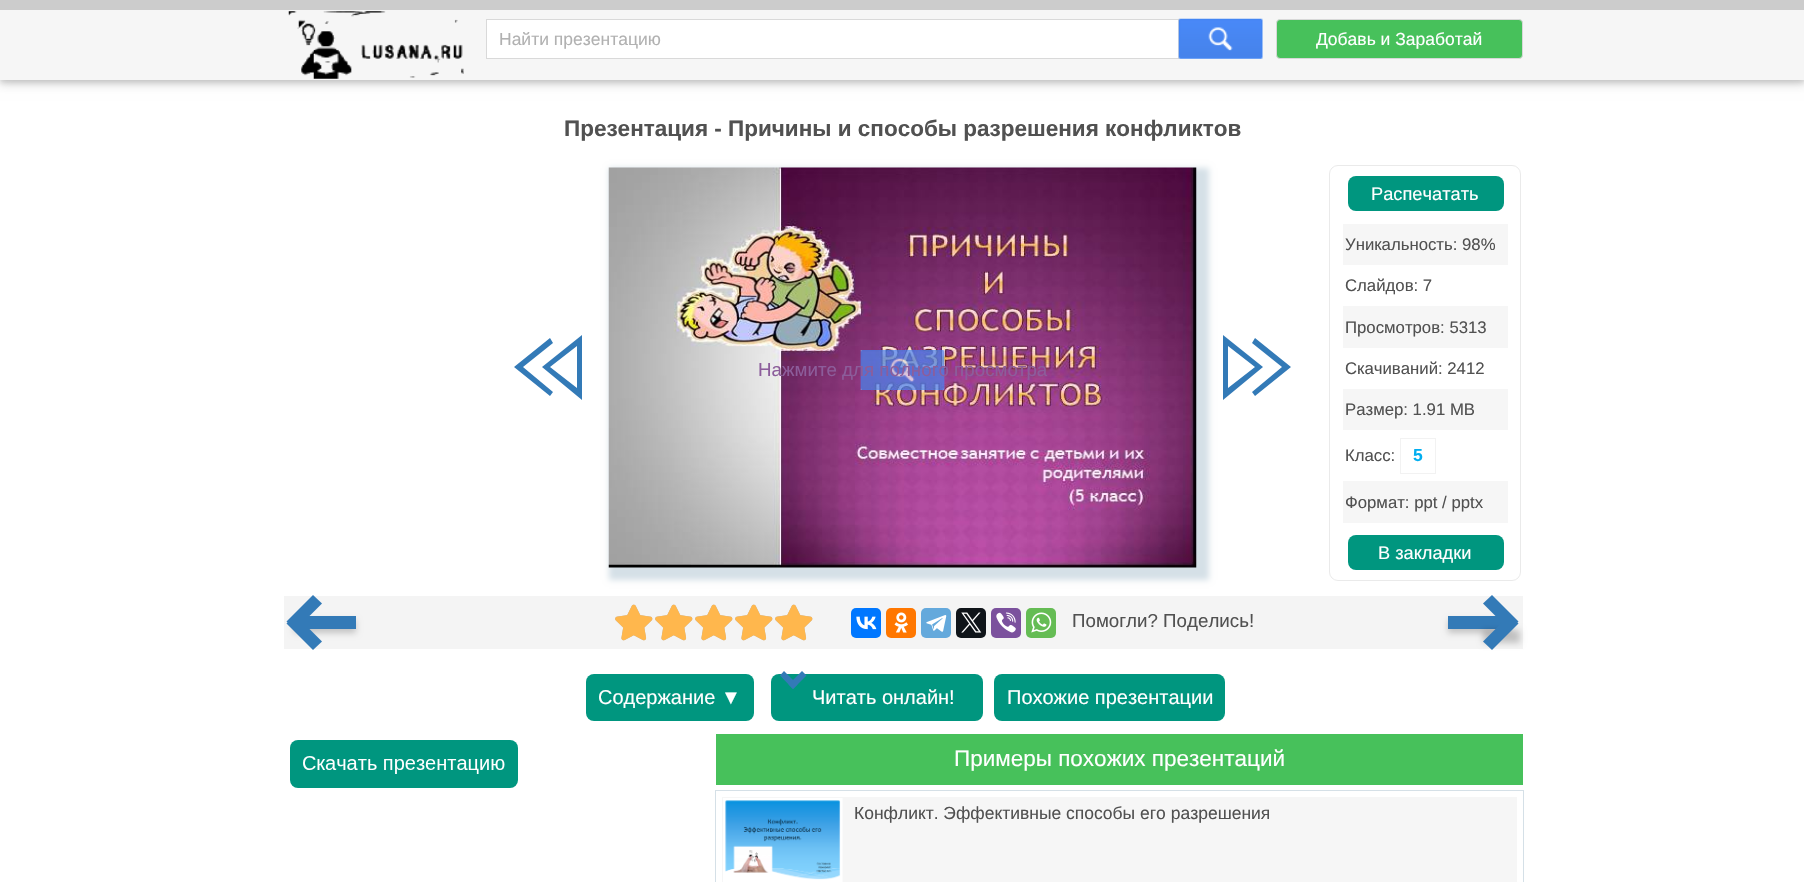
void draw(SkCanvas* canvas) {
    SkPaint paint;
    paint.setAntiAlias(true);
    auto face = [&](const char* family, int weight, float size, bool italic = false) {
        SkFontStyle style(weight, SkFontStyle::kNormal_Width,
            italic ? SkFontStyle::kItalic_Slant : SkFontStyle::kUpright_Slant);
        SkFont result(fontMgr->matchFamilyStyle(family, style), size);
        result.setSubpixel(true);
        return result;
    };
    auto write = [&](const char* s, float x, float y, const SkFont& font, SkColor color) {
        SkPaint ink(SkColor4f::FromColor(color));
        ink.setAntiAlias(true);
        canvas->drawString(s, x, y, font, ink);
    };
    auto block = [&](float x, float y, float w, float h, SkColor color) {
        SkPaint ink(SkColor4f::FromColor(color));
        ink.setAntiAlias(true);
        canvas->drawRect(SkRect::MakeXYWH(x, y, w, h), ink);
    };
    auto card = [&](float x, float y, float w, float h, float radius, SkColor color) {
        SkPaint ink(SkColor4f::FromColor(color));
        ink.setAntiAlias(true);
        canvas->drawRoundRect(SkRect::MakeXYWH(x, y, w, h), radius, radius, ink);
    };
    auto paste = [&](const char* path, float x, float y, float w, float h) {
        auto image = SkImages::DeferredFromEncodedData(SkData::MakeFromFileName(path));
        canvas->drawImageRect(image, SkRect::MakeXYWH(x, y, w, h), SkSamplingOptions());
    };
    canvas->clear(SK_ColorWHITE);
    paint.setColor(SkColorSetARGB(31, 0, 0, 0));
    paint.setMaskFilter(SkMaskFilter::MakeBlur(kNormal_SkBlurStyle, 6));
    canvas->drawRect(SkRect::MakeXYWH(0, 3, 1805, 80), paint);
    paint.setMaskFilter(nullptr);
    paint.setColor(SkColorSetARGB(41, 0, 0, 0));
    paint.setMaskFilter(SkMaskFilter::MakeBlur(kNormal_SkBlurStyle, 3));
    canvas->drawRect(SkRect::MakeXYWH(0, 3, 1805, 80), paint);
    paint.setMaskFilter(nullptr);
    block(0, 0, 1804, 10, SkColorSetRGB(204, 204, 204));
    block(0, 10, 1804, 70, SkColorSetRGB(246, 246, 246));
    paste("pic1.png", 288, 11, 176, 68);
    paint.setColor(SK_ColorWHITE);
    canvas->drawRect(SkRect::MakeXYWH(486.5f, 19.5f, 692, 39), paint);
    paint.setStyle(SkPaint::kStroke_Style);
    paint.setStrokeWidth(1);
    paint.setColor(SkColorSetRGB(217, 217, 217));
    canvas->drawRect(SkRect::MakeXYWH(486.5f, 19.5f, 692, 39), paint);
    auto kFont1 = face("Liberation Sans", 400, 17.5f);
    write("Найти презентацию", 499, 45, kFont1, SkColorSetRGB(177, 177, 177));
    paste("pic2.png", 1178, 18, 85, 41);
    paint.setStyle(SkPaint::kFill_Style);
    paint.setColor(SkColorSetRGB(71, 193, 91));
    canvas->drawRoundRect(SkRect::MakeXYWH(1276.5f, 19.5f, 246, 39), 3.5f, 3.5f, paint);
    paint.setStyle(SkPaint::kStroke_Style);
    paint.setColor(SkColorSetRGB(216, 216, 216));
    canvas->drawRoundRect(SkRect::MakeXYWH(1276.5f, 19.5f, 246, 39), 3.5f, 3.5f, paint);
    write("Добавь и Заработай", 1316, 45, kFont1, SK_ColorWHITE);
    auto kFont2 = face("Liberation Sans", 700, 22.5f);
    write("Презентация - Причины и способы разрешения конфликтов", 564, 136, kFont2, SkColorSetRGB(81, 81, 81));
    paint.setStyle(SkPaint::kFill_Style);
    paint.setColor(SkColorSetRGB(51, 122, 183));
    canvas->drawPath(SkPathBuilder().moveTo(514, 367).lineTo(550, 396).lineTo(553, 392).lineTo(523, 367).lineTo(553, 343).lineTo(550, 338).close().detach(), paint);
    canvas->drawPath(SkPathBuilder().moveTo(582, 335).lineTo(582, 400).lineTo(542, 367).close().moveTo(577, 346).lineTo(550, 367).lineTo(577, 388).close().detach(), paint);
    paint.setColor(SkColorSetRGB(213, 224, 231));
    paint.setMaskFilter(SkMaskFilter::MakeBlur(kNormal_SkBlurStyle, 3));
    canvas->drawRect(SkRect::MakeXYWH(609, 168, 600, 412), paint);
    paint.setMaskFilter(nullptr);
    paste("pic3.png", 608, 167, 589, 401);
    paste("pic4.png", 860, 350, 85, 40);
    auto kFont3 = face("Liberation Sans", 400, 18.75f);
    write("Нажмите для полного просмотра", 758, 376, kFont3, SkColorSetRGB(140, 93, 155));
    paint.setColor(SkColorSetRGB(51, 122, 183));
    canvas->drawPath(SkPathBuilder().moveTo(1291, 367).lineTo(1255, 396).lineTo(1252, 392).lineTo(1282, 367).lineTo(1252, 343).lineTo(1255, 338).close().detach(), paint);
    canvas->drawPath(SkPathBuilder().moveTo(1223, 335).lineTo(1223, 400).lineTo(1263, 367).close().moveTo(1228, 346).lineTo(1255, 367).lineTo(1228, 388).close().detach(), paint);
    paint.setStyle(SkPaint::kStroke_Style);
    paint.setColor(SkColorSetRGB(234, 234, 234));
    canvas->drawRoundRect(SkRect::MakeXYWH(1329.5f, 165.5f, 191, 415), 8.5f, 8.5f, paint);
    card(1348, 176, 156, 35, 8, SkColorSetRGB(0, 150, 127));
    auto kFont4 = face("Liberation Sans", 400, 18.25f);
    write("Распечатать", 1371, 200, kFont4, SK_ColorWHITE);
    block(1343, 224, 165, 41, SkColorSetRGB(246, 246, 246));
    auto kFont5 = face("Liberation Sans", 400, 16.75f);
    write("Уникальность: 98%", 1345, 250, kFont5, SkColorSetRGB(81, 81, 81));
    write("Слайдов: 7", 1345, 291, kFont5, SkColorSetRGB(81, 81, 81));
    block(1343, 306, 165, 42, SkColorSetRGB(246, 246, 246));
    write("Просмотров: 5313", 1345, 333, kFont5, SkColorSetRGB(81, 81, 81));
    write("Скачиваний: 2412", 1345, 374, kFont5, SkColorSetRGB(81, 81, 81));
    block(1343, 389, 165, 41, SkColorSetRGB(246, 246, 246));
    write("Размер: 1.91 MB", 1345, 415, kFont5, SkColorSetRGB(81, 81, 81));
    write("Класс:", 1345, 461, kFont5, SkColorSetRGB(81, 81, 81));
    paint.setColor(SkColorSetRGB(242, 242, 242));
    canvas->drawRect(SkRect::MakeXYWH(1400.5f, 438.5f, 35, 35), paint);
    auto kFont6 = face("Liberation Sans", 700, 17.5f);
    write("5", 1413, 461, kFont6, SkColorSetRGB(1, 174, 240));
    block(1343, 481, 165, 42, SkColorSetRGB(246, 246, 246));
    write("Формат: ppt / pptx", 1345, 508, kFont5, SkColorSetRGB(81, 81, 81));
    card(1348, 535, 156, 35, 8, SkColorSetRGB(0, 150, 127));
    write("В закладки", 1378, 559, kFont4, SK_ColorWHITE);
    block(284, 596, 1239, 53, SkColorSetRGB(244, 244, 244));
    paint.setStyle(SkPaint::kFill_Style);
    paint.setColor(SkColorSetARGB(51, 0, 0, 0));
    paint.setMaskFilter(SkMaskFilter::MakeBlur(kNormal_SkBlurStyle, 3));
    canvas->drawRect(SkRect::MakeXYWH(294, 620, 62, 13), paint);
    paint.setMaskFilter(nullptr);
    block(302, 616, 54, 13, SkColorSetRGB(51, 122, 183));
    paint.setColor(SkColorSetRGB(51, 122, 183));
    canvas->drawPath(SkPathBuilder().moveTo(286.5f, 621.5f).lineTo(313, 595).lineTo(322, 603.5f).lineTo(295.5f, 630).close().detach(), paint);
    canvas->drawPath(SkPathBuilder().moveTo(295.5f, 615).lineTo(322, 641.5f).lineTo(313, 650).lineTo(286.5f, 623.5f).close().detach(), paint);
    paste("pic5.png", 615, 604, 38, 37);
    paste("pic5.png", 655, 604, 38, 37);
    paste("pic5.png", 695, 604, 38, 37);
    paste("pic5.png", 735, 604, 38, 37);
    paste("pic5.png", 775, 604, 38, 37);
    paste("pic6.png", 615, 604, 38, 37);
    paste("pic6.png", 655, 604, 38, 37);
    paste("pic6.png", 695, 604, 38, 37);
    paste("pic6.png", 735, 604, 38, 37);
    paste("pic6.png", 775, 604, 38, 37);
    card(851, 608, 30, 30, 5, SkColorSetRGB(0, 119, 255));
    paste("pic7.png", 856, 616, 21, 14);
    card(886, 608, 30, 30, 5, SkColorSetRGB(255, 119, 0));
    paste("pic8.png", 894, 612, 14, 21);
    card(921, 608, 30, 30, 5, SkColorSetRGB(100, 169, 220));
    paste("pic9.png", 926, 615, 21, 17);
    card(956, 608, 30, 30, 5, SkColorSetRGB(15, 20, 25));
    paste("pic10.png", 961, 612, 21, 21);
    card(991, 608, 30, 30, 5, SkColorSetRGB(123, 81, 157));
    paste("pic11.png", 996, 612, 20, 21);
    card(1026, 608, 30, 30, 5, SkColorSetRGB(101, 188, 84));
    paste("pic12.png", 1031, 612, 21, 21);
    write("Помогли? Поделись!", 1072, 627, kFont3, SkColorSetRGB(81, 81, 81));
    paint.setColor(SkColorSetARGB(51, 0, 0, 0));
    paint.setMaskFilter(SkMaskFilter::MakeBlur(kNormal_SkBlurStyle, 3));
    canvas->drawRect(SkRect::MakeXYWH(1448, 620, 62, 13), paint);
    paint.setMaskFilter(nullptr);
    block(1448, 616, 55, 13, SkColorSetRGB(51, 122, 183));
    paint.setMaskFilter(SkMaskFilter::MakeBlur(kNormal_SkBlurStyle, 3));
    canvas->drawRect(SkRect::MakeXYWH(1483, 630, 37, 13), paint);
    paint.setMaskFilter(nullptr);
    paint.setColor(SkColorSetRGB(51, 122, 183));
    canvas->drawPath(SkPathBuilder().moveTo(1483, 641.5f).lineTo(1509.5f, 615).lineTo(1518.5f, 623.5f).lineTo(1492, 650).close().detach(), paint);
    canvas->drawPath(SkPathBuilder().moveTo(1492, 595).lineTo(1518.5f, 621.5f).lineTo(1509.5f, 630).lineTo(1483, 603.5f).close().detach(), paint);
    card(586, 674, 168, 47, 8, SkColorSetRGB(0, 150, 127));
    auto kFont7 = face("Liberation Sans", 400, 20);
    write("Содержание ▼", 598, 704, kFont7, SK_ColorWHITE);
    card(771, 674, 212, 47, 8, SkColorSetRGB(0, 150, 127));
    canvas->drawPath(SkPathBuilder().moveTo(802, 671).lineTo(806.5f, 675.5f).lineTo(793, 689).lineTo(788.5f, 684.5f).close().detach(), paint);
    canvas->drawPath(SkPathBuilder().moveTo(784, 671).lineTo(797.5f, 684.5f).lineTo(793, 689).lineTo(780, 675.5f).close().detach(), paint);
    write("Читать онлайн!", 812, 704, kFont7, SK_ColorWHITE);
    card(994, 674, 231, 47, 8, SkColorSetRGB(0, 150, 127));
    write("Похожие презентации", 1007, 704, kFont7, SK_ColorWHITE);
    card(290, 740, 228, 48, 8, SkColorSetRGB(0, 150, 127));
    paste("pic13.png", 303, 756, 202, 18);
    block(716, 734, 807, 51, SkColorSetRGB(71, 193, 91));
    auto kFont8 = face("Liberation Sans", 400, 22.5f);
    write("Примеры похожих презентаций", 954, 766, kFont8, SK_ColorWHITE);
    paint.setStyle(SkPaint::kStroke_Style);
    paint.setColor(SkColorSetRGB(213, 224, 231));
    canvas->drawRect(SkRect::MakeXYWH(715.5f, 790.5f, 808, 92), paint);
    block(722, 797, 795, 85, SkColorSetRGB(246, 246, 246));
    paste("pic14.png", 723, 798, 120, 84);
    write("Конфликт. Эффективные способы его разрешения", 854, 819, kFont1, SkColorSetRGB(81, 81, 81));
}
